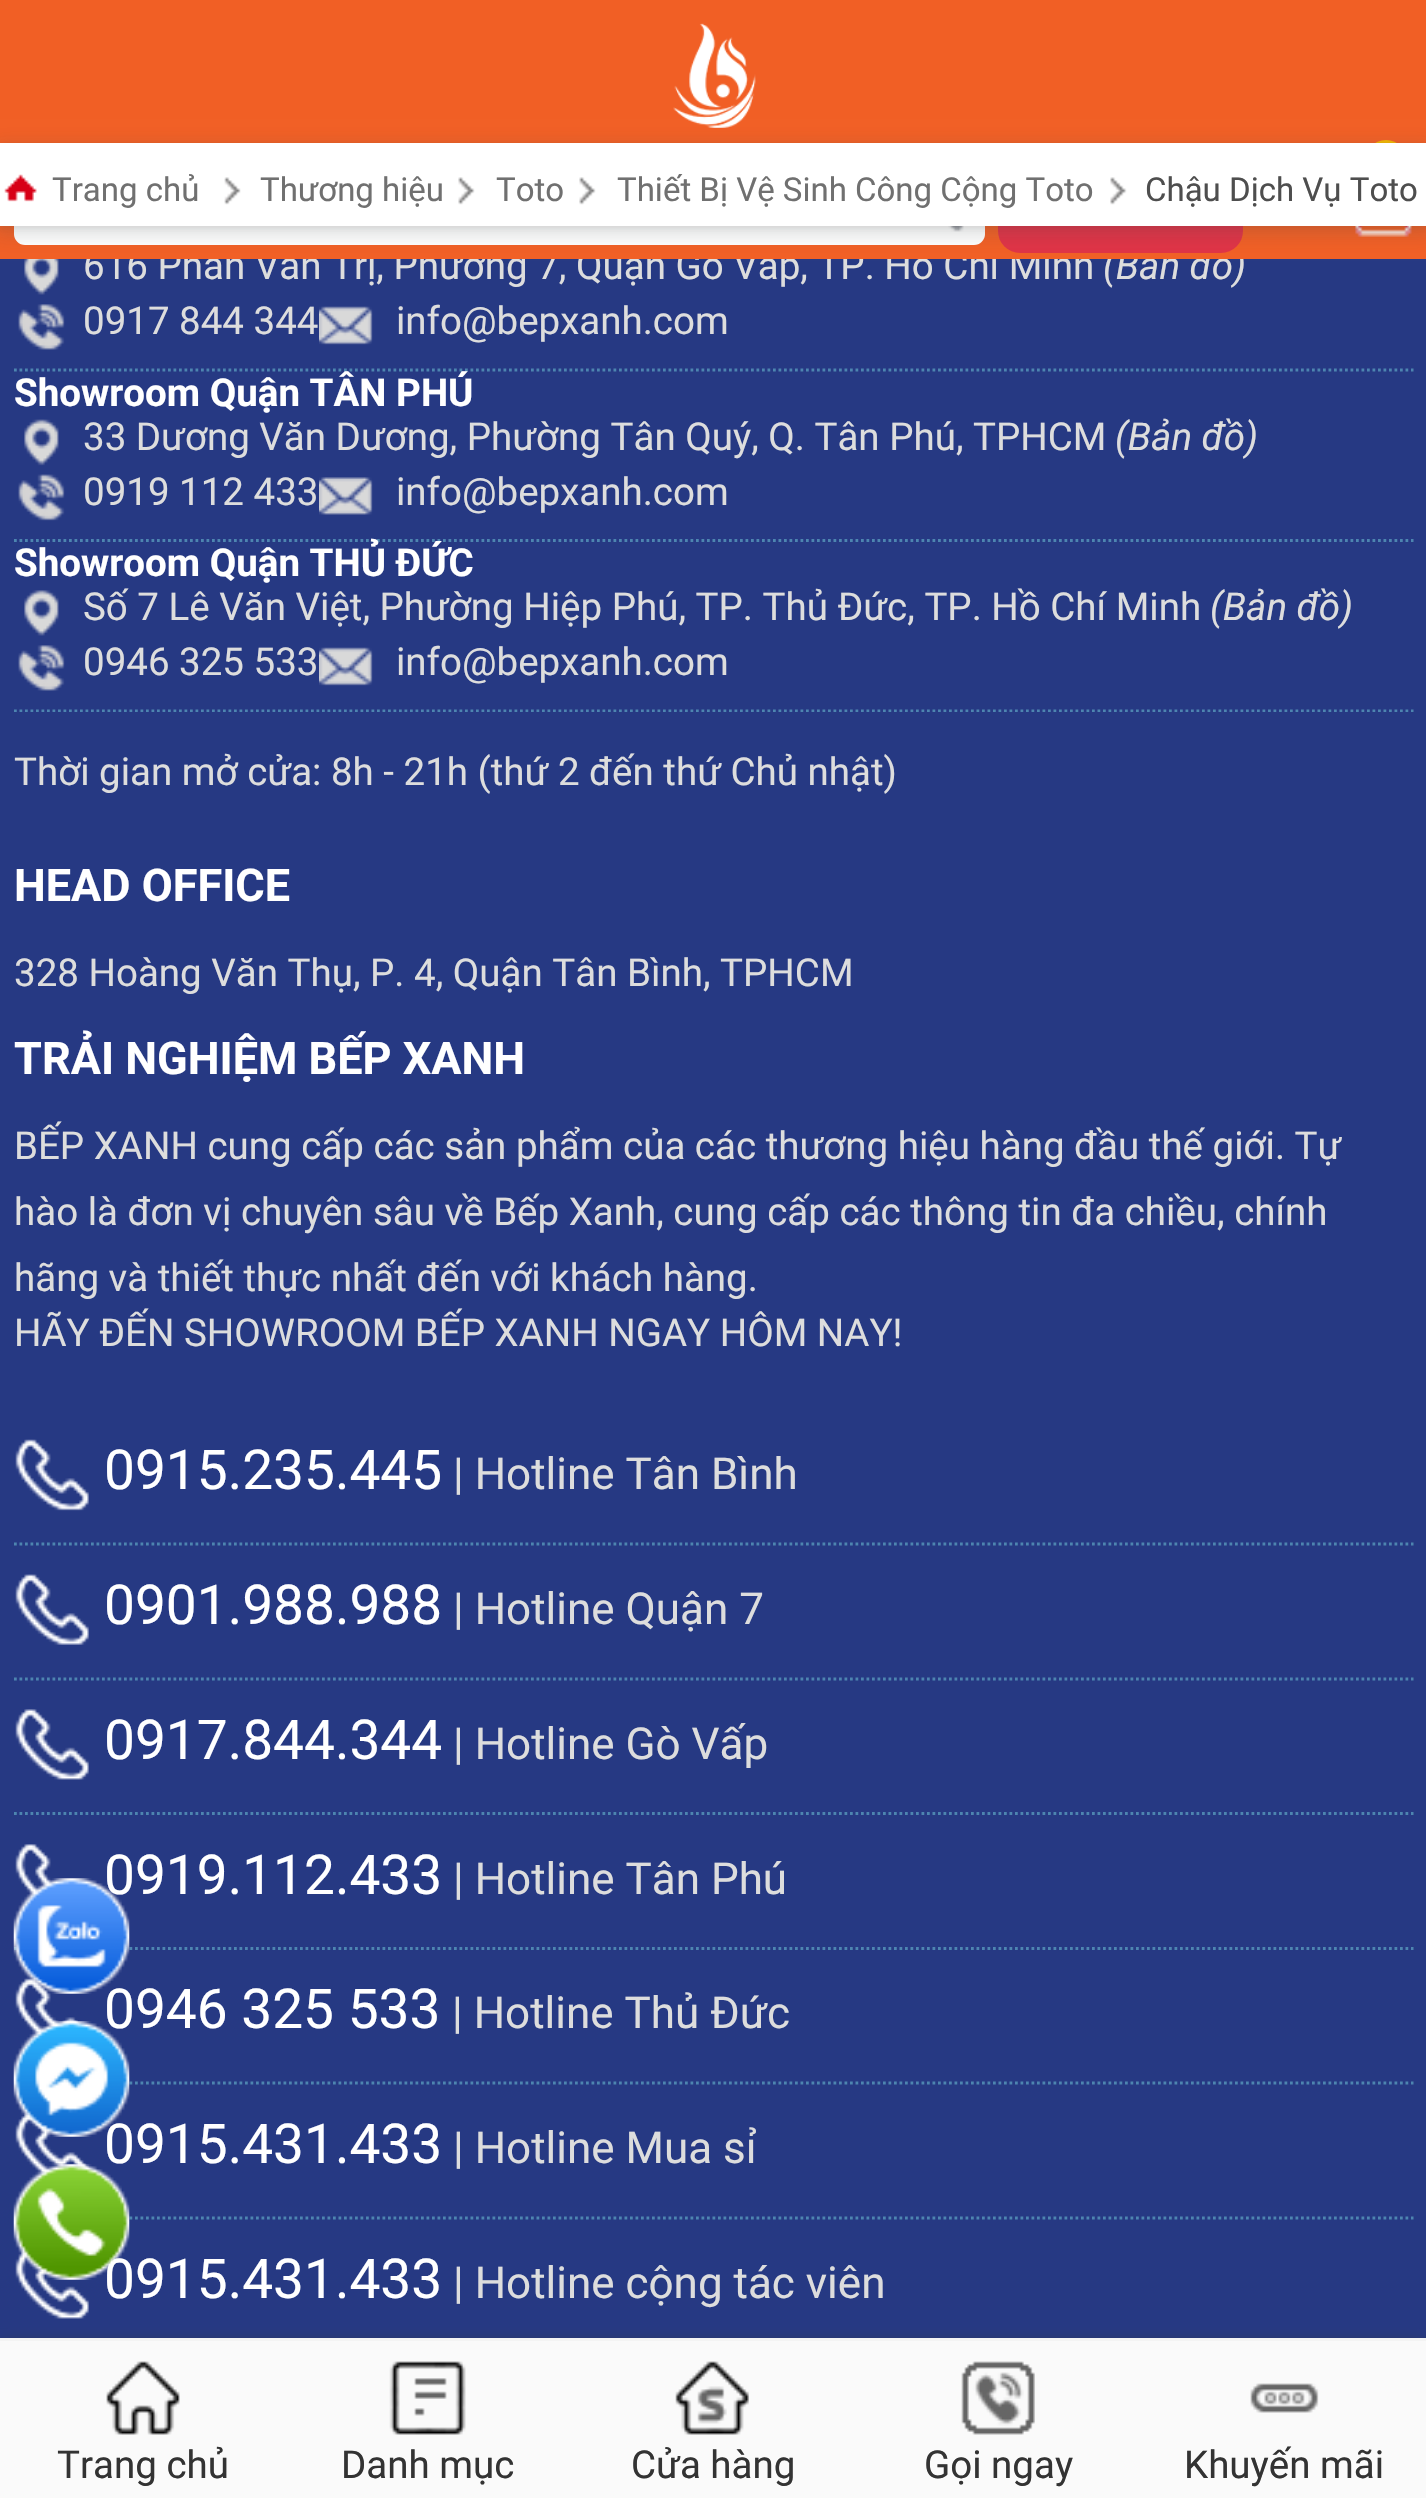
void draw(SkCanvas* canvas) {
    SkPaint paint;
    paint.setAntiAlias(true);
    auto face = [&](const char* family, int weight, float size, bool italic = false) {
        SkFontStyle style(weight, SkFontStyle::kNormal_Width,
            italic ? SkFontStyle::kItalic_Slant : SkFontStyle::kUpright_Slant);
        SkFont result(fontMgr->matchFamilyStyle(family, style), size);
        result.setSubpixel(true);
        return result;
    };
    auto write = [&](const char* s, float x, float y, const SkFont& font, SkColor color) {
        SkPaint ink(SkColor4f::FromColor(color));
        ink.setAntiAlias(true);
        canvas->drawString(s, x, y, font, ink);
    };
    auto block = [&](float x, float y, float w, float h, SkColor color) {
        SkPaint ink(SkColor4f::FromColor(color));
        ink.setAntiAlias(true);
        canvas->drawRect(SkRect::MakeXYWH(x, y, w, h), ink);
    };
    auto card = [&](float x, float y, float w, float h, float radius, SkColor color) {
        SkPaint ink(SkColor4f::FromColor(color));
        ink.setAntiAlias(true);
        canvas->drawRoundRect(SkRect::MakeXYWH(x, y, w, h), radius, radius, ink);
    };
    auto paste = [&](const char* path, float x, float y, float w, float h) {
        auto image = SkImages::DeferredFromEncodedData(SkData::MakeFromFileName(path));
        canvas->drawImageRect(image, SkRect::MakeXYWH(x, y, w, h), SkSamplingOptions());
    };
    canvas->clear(SkColorSetRGB(38, 57, 131));
    auto kFont1 = face("Roboto", 400, 38.5f);
    write("616 Phan Văn Trị, Phường 7, Quận Gò Vấp, TP. Hồ Chí Minh", 83, 279, kFont1, SkColorSetRGB(221, 221, 221));
    auto kFont2 = face("Roboto", 400, 38.5f, true);
    write("(Bản đồ)", 1103, 279, kFont2, SkColorSetRGB(221, 221, 221));
    block(0, 0, 1426, 259, SkColorSetRGB(241, 95, 37));
    paste("pic1.png", 673, 23, 83, 105);
    card(14, 154, 971, 91, 11, SK_ColorWHITE);
    paste("pic2.png", 948, 226, 16, 6);
    card(998, 154, 245, 99, 22, SkColorSetRGB(223, 51, 70));
    card(1364, 140, 44, 47, 22, SkColorSetRGB(243, 184, 1));
    paste("pic3.png", 1355, 226, 57, 11);
    paste("pic8.png", 24, 259, 35, 36);
    paint.setColor(SkColorSetARGB(38, 60, 64, 67));
    paint.setMaskFilter(SkMaskFilter::MakeBlur(kNormal_SkBlurStyle, 8));
    canvas->drawRect(SkRect::MakeXYWH(-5, 143, 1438, 94), paint);
    paint.setMaskFilter(nullptr);
    paint.setColor(SkColorSetARGB(26, 60, 64, 67));
    paint.setMaskFilter(SkMaskFilter::MakeBlur(kNormal_SkBlurStyle, 3));
    canvas->drawRect(SkRect::MakeXYWH(0, 146, 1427, 82), paint);
    paint.setMaskFilter(nullptr);
    block(0, 143, 1426, 83, SK_ColorWHITE);
    paste("pic4.png", 4, 174, 33, 28);
    auto kFont3 = face("Roboto", 400, 33);
    write("Trang chủ", 52, 201, kFont3, SkColorSetRGB(112, 112, 112));
    paste("pic5.png", 224, 177, 17, 28);
    write("Thương hiệu", 260, 201, kFont3, SkColorSetRGB(112, 112, 112));
    paste("pic6.png", 458, 177, 17, 28);
    write("Toto", 496, 201, kFont3, SkColorSetRGB(112, 112, 112));
    paste("pic6.png", 579, 177, 17, 28);
    write("Thiết Bị Vệ Sinh Công Cộng Toto", 617, 201, kFont3, SkColorSetRGB(112, 112, 112));
    paste("pic7.png", 1110, 177, 17, 28);
    write("Chậu Dịch Vụ Toto", 1145, 201, kFont3, SkColorSetRGB(78, 78, 78));
    paint.setStyle(SkPaint::kStroke_Style);
    paint.setStrokeWidth(2.8f);
    paint.setColor(SkColorSetRGB(77, 133, 176));
    paint.setPathEffect(SkDashPathEffect::Make({{2.75f, 2.75f}}, 0));
    canvas->drawPath(SkPathBuilder().moveTo(14, 370).lineTo(1413.5f, 370).detach(), paint);
    paint.setPathEffect(nullptr);
    paste("pic9.png", 18, 304, 47, 46);
    write("0917 844 344", 83, 334, kFont1, SkColorSetRGB(221, 221, 221));
    paste("pic10.png", 319, 306, 54, 39);
    write("info@bepxanh.com", 396, 334, kFont1, SkColorSetRGB(221, 221, 221));
    paint.setPathEffect(SkDashPathEffect::Make({{2.75f, 2.75f}}, 0));
    canvas->drawPath(SkPathBuilder().moveTo(14, 540.5f).lineTo(1413.5f, 540.5f).detach(), paint);
    paint.setPathEffect(nullptr);
    auto kFont4 = face("Roboto", 700, 38.5f);
    write("Showroom Quận TÂN PHÚ", 14, 406, kFont4, SK_ColorWHITE);
    paste("pic11.png", 24, 419, 35, 47);
    write("33 Dương Văn Dương, Phường Tân Quý, Q. Tân Phú, TPHCM", 83, 450, kFont1, SkColorSetRGB(221, 221, 221));
    write("(Bản đồ)", 1115, 450, kFont2, SkColorSetRGB(221, 221, 221));
    paste("pic12.png", 18, 474, 47, 47);
    write("0919 112 433", 83, 505, kFont1, SkColorSetRGB(221, 221, 221));
    paste("pic13.png", 319, 477, 54, 38);
    write("info@bepxanh.com", 396, 505, kFont1, SkColorSetRGB(221, 221, 221));
    canvas->save();
    canvas->clipRect(SkRect::MakeXYWH(14, 0, 1400, 712));
    paint.setPathEffect(SkDashPathEffect::Make({{2.75f, 2.75f}}, 0));
    canvas->drawPath(SkPathBuilder().moveTo(14, 711).lineTo(1413.5f, 711).detach(), paint);
    paint.setPathEffect(nullptr);
    canvas->restore();
    write("Showroom Quận THỦ ĐỨC", 14, 576, kFont4, SK_ColorWHITE);
    paste("pic14.png", 24, 590, 35, 46);
    write("Số 7 Lê Văn Việt, Phường Hiệp Phú, TP. Thủ Đức, TP. Hồ Chí Minh", 83, 620, kFont1, SkColorSetRGB(221, 221, 221));
    write("(Bản đồ)", 1210, 620, kFont2, SkColorSetRGB(221, 221, 221));
    paste("pic9.png", 18, 645, 47, 46);
    write("0946 325 533", 83, 675, kFont1, SkColorSetRGB(221, 221, 221));
    paste("pic10.png", 319, 647, 54, 39);
    write("info@bepxanh.com", 396, 675, kFont1, SkColorSetRGB(221, 221, 221));
    write("Thời gian mở cửa: 8h - 21h (thứ 2 đến thứ Chủ nhật)", 14, 785, kFont1, SkColorSetRGB(221, 221, 221));
    auto kFont5 = face("Roboto", 700, 45);
    write("HEAD OFFICE", 14, 901, kFont5, SK_ColorWHITE);
    write("328 Hoàng Văn Thụ, P. 4, Quận Tân Bình, TPHCM", 14, 986, kFont1, SkColorSetRGB(221, 221, 221));
    write("TRẢI NGHIỆM BẾP XANH", 14, 1074, kFont5, SK_ColorWHITE);
    write("BẾP XANH cung cấp các sản phẩm của các thương hiệu hàng đầu thế giới. Tự", 14, 1159, kFont1, SkColorSetRGB(221, 221, 221));
    write("hào là đơn vị chuyên sâu về Bếp Xanh, cung cấp các thông tin đa chiều, chính", 14, 1225, kFont1, SkColorSetRGB(221, 221, 221));
    write("hãng và thiết thực nhất đến với khách hàng.", 14, 1291, kFont1, SkColorSetRGB(221, 221, 221));
    write("HÃY ĐẾN SHOWROOM BẾP XANH NGAY HÔM NAY!", 14, 1346, kFont1, SkColorSetRGB(221, 221, 221));
    paint.setPathEffect(SkDashPathEffect::Make({{2.75f, 2.75f}}, 0));
    canvas->drawPath(SkPathBuilder().moveTo(14, 1544).lineTo(1413.5f, 1544).detach(), paint);
    paint.setPathEffect(nullptr);
    paste("pic15.png", 15, 1439, 74, 72);
    auto kFont6 = face("Roboto", 400, 55);
    write("0915.235.445", 104, 1489, kFont6, SK_ColorWHITE);
    auto kFont7 = face("Roboto", 400, 44);
    write("| Hotline Tân Bình", 453, 1489, kFont7, SkColorSetRGB(221, 221, 221));
    paint.setPathEffect(SkDashPathEffect::Make({{2.75f, 2.75f}}, 0));
    canvas->drawPath(SkPathBuilder().moveTo(14, 1679).lineTo(1413.5f, 1679).detach(), paint);
    paint.setPathEffect(nullptr);
    paste("pic16.png", 15, 1574, 74, 71);
    write("0901.988.988", 104, 1624, kFont6, SK_ColorWHITE);
    write("| Hotline Quận 7", 453, 1624, kFont7, SkColorSetRGB(221, 221, 221));
    paint.setPathEffect(SkDashPathEffect::Make({{2.75f, 2.75f}}, 0));
    canvas->drawPath(SkPathBuilder().moveTo(14, 1813.5f).lineTo(1413.5f, 1813.5f).detach(), paint);
    paint.setPathEffect(nullptr);
    paste("pic17.png", 15, 1709, 74, 71);
    write("0917.844.344", 104, 1759, kFont6, SK_ColorWHITE);
    write("| Hotline Gò Vấp", 453, 1759, kFont7, SkColorSetRGB(221, 221, 221));
    paint.setPathEffect(SkDashPathEffect::Make({{2.75f, 2.75f}}, 0));
    canvas->drawPath(SkPathBuilder().moveTo(14, 1948.5f).lineTo(1413.5f, 1948.5f).detach(), paint);
    paint.setPathEffect(nullptr);
    paste("pic18.png", 15, 1844, 41, 54);
    write("0919.112.433", 104, 1894, kFont6, SK_ColorWHITE);
    write("| Hotline Tân Phú", 453, 1894, kFont7, SkColorSetRGB(221, 221, 221));
    paint.setPathEffect(SkDashPathEffect::Make({{2.75f, 2.75f}}, 0));
    canvas->drawPath(SkPathBuilder().moveTo(14, 2083).lineTo(1413.5f, 2083).detach(), paint);
    paint.setPathEffect(nullptr);
    paste("pic19.png", 15, 1978, 66, 58);
    write("0946 325 533", 104, 2028, kFont6, SK_ColorWHITE);
    write("| Hotline Thủ Đức", 452, 2028, kFont7, SkColorSetRGB(221, 221, 221));
    paint.setPathEffect(SkDashPathEffect::Make({{2.75f, 2.75f}}, 0));
    canvas->drawPath(SkPathBuilder().moveTo(14, 2218).lineTo(1413.5f, 2218).detach(), paint);
    paint.setPathEffect(nullptr);
    paste("pic20.png", 15, 2113, 74, 63);
    write("0915.431.433", 104, 2163, kFont6, SK_ColorWHITE);
    write("| Hotline Mua sỉ", 453, 2163, kFont7, SkColorSetRGB(221, 221, 221));
    paste("pic17.png", 15, 2248, 74, 71);
    write("0915.431.433", 104, 2298, kFont6, SK_ColorWHITE);
    write("| Hotline cộng tác viên", 453, 2298, kFont7, SkColorSetRGB(221, 221, 221));
    paste("pic21.png", 13, 1878, 117, 116);
    paste("pic22.png", 13, 2021, 117, 116);
    paste("pic23.png", 13, 2164, 117, 116);
    paint.setStyle(SkPaint::kFill_Style);
    paint.setColor(SkColorSetRGB(51, 51, 51));
    paint.setMaskFilter(SkMaskFilter::MakeBlur(kNormal_SkBlurStyle, 8));
    canvas->drawRect(SkRect::MakeXYWH(0, 2346, 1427, 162), paint);
    paint.setMaskFilter(nullptr);
    block(0, 2341, 1426, 157, SkColorSetRGB(250, 250, 250));
    block(0, 2338, 1426, 3, SkColorSetRGB(244, 244, 244));
    paste("pic24.png", 106, 2361, 74, 74);
    write("Trang chủ", 57, 2478, kFont1, SkColorSetRGB(51, 51, 51));
    paste("pic25.png", 389, 2361, 77, 74);
    write("Danh mục", 341, 2478, kFont1, SkColorSetRGB(51, 51, 51));
    paste("pic26.png", 675, 2361, 74, 74);
    write("Cửa hàng", 631, 2478, kFont1, SkColorSetRGB(51, 51, 51));
    paste("pic27.png", 961, 2361, 74, 74);
    write("Gọi ngay", 924, 2478, kFont1, SkColorSetRGB(51, 51, 51));
    paste("pic28.png", 1250, 2383, 69, 30);
    write("Khuyến mãi", 1184, 2478, kFont1, SkColorSetRGB(51, 51, 51));
}
